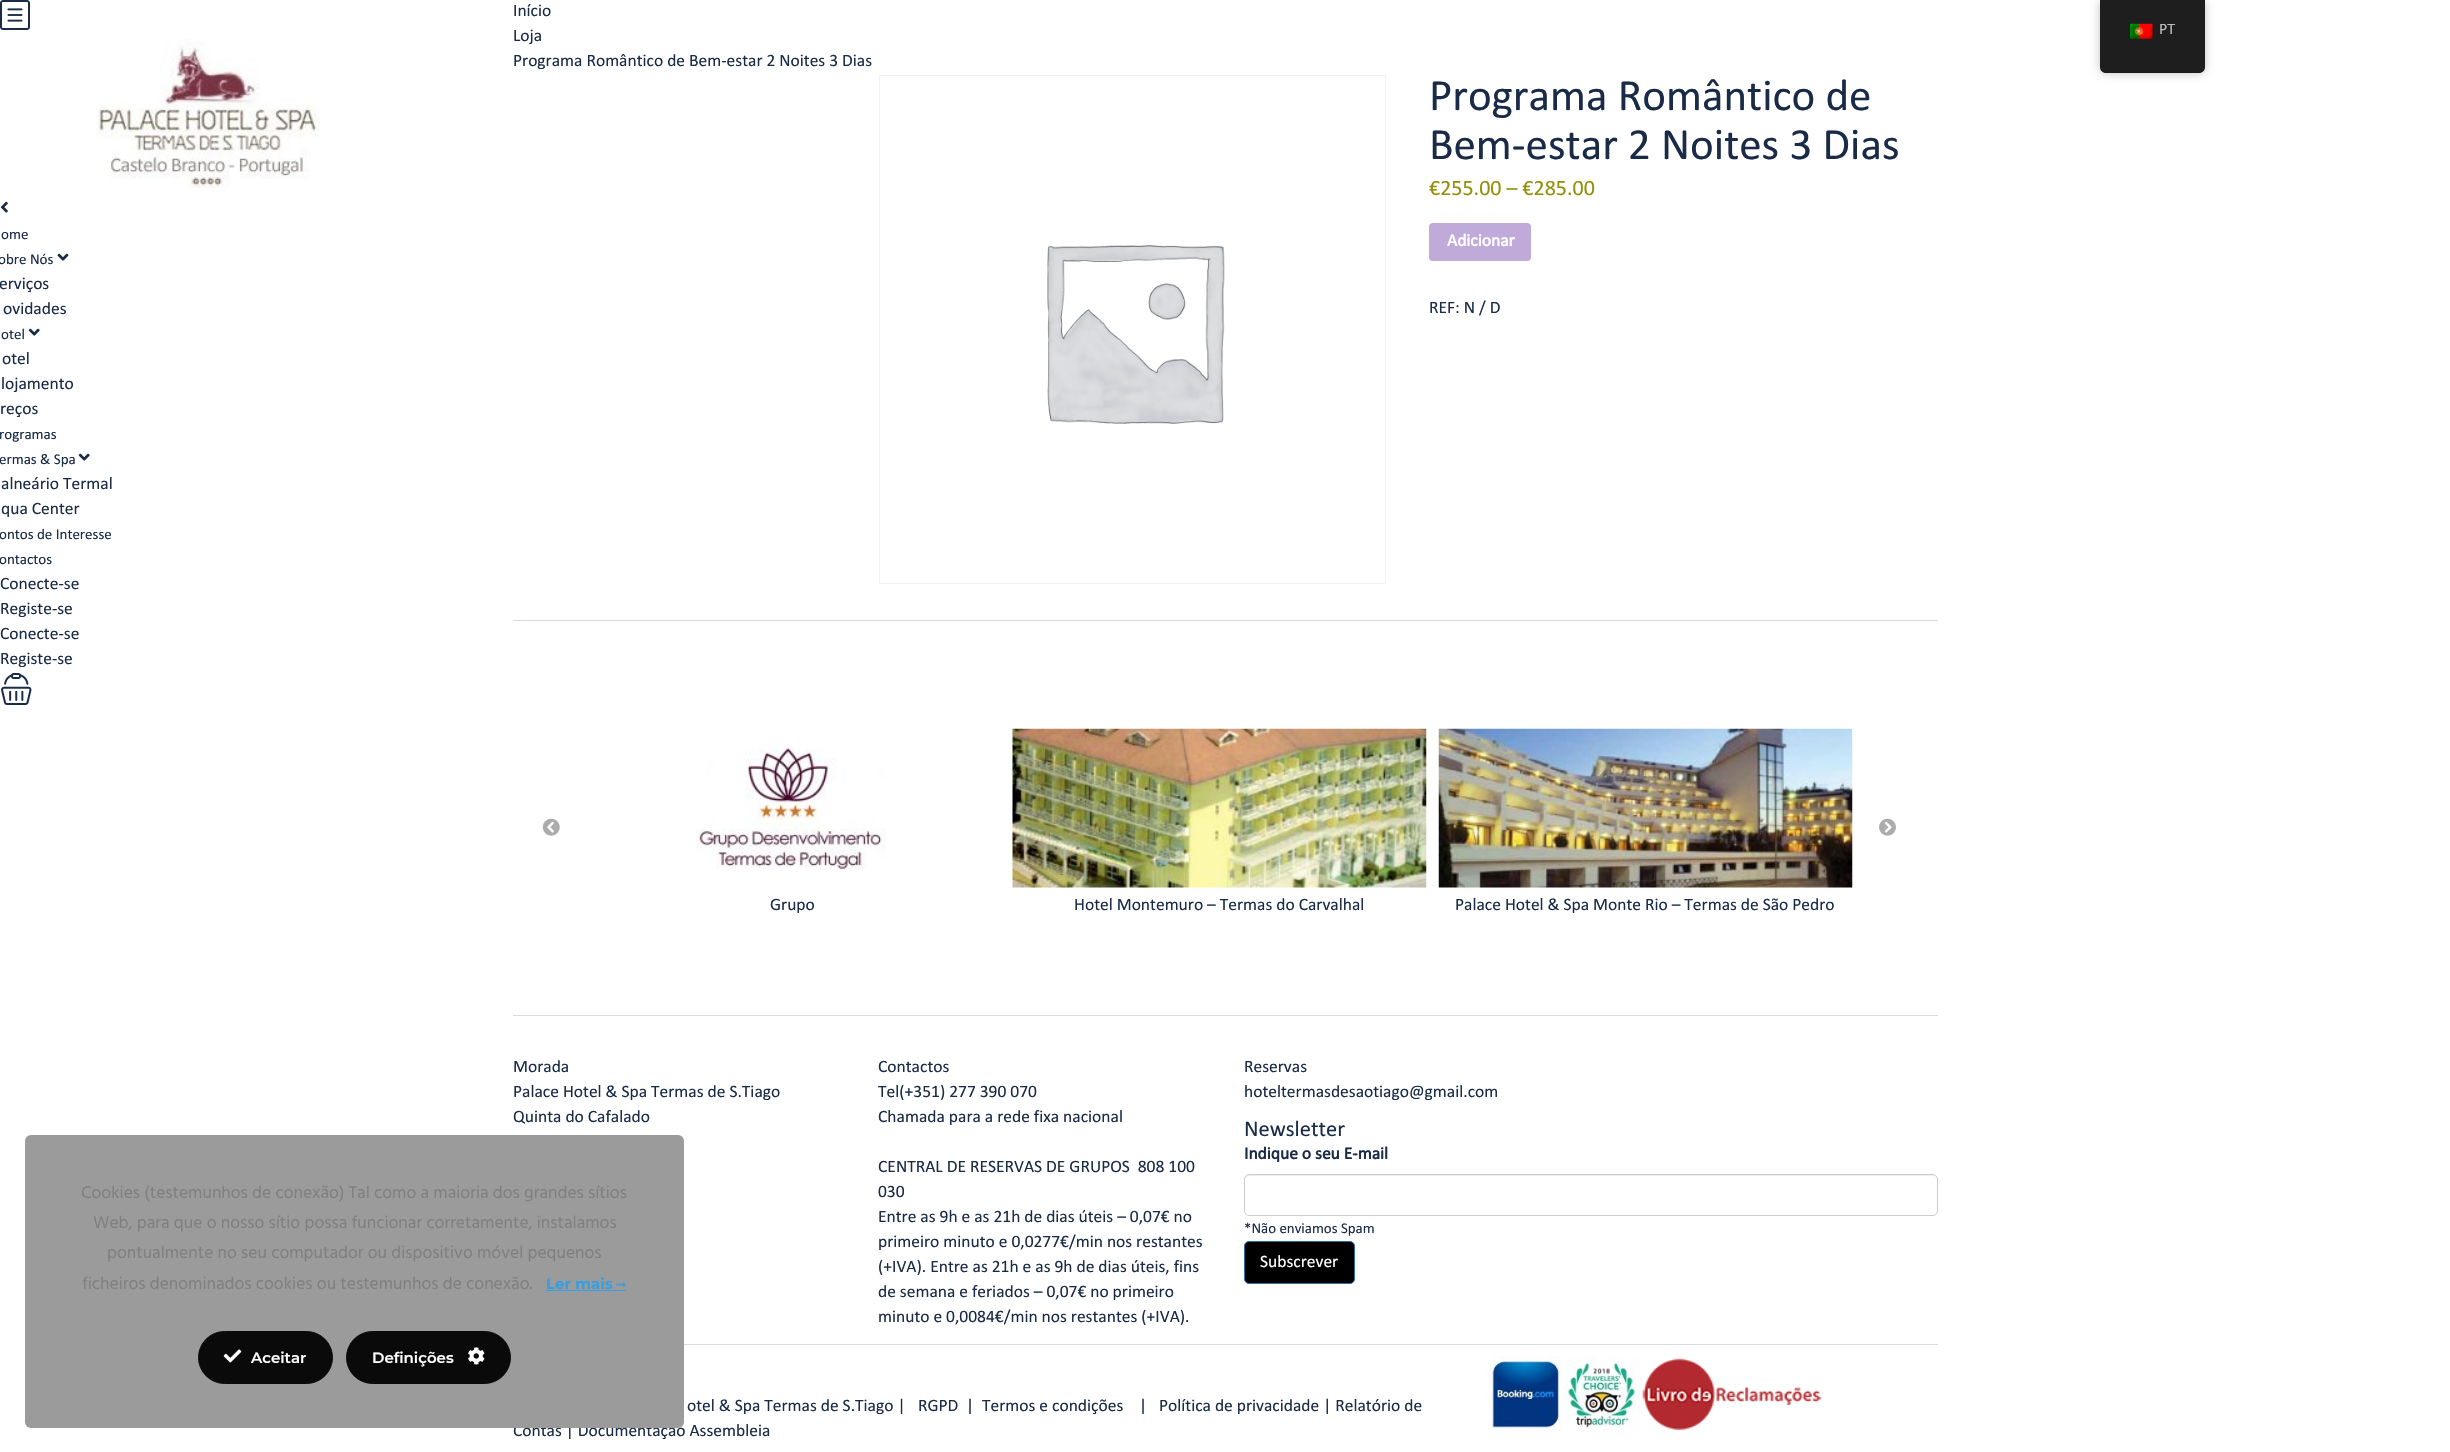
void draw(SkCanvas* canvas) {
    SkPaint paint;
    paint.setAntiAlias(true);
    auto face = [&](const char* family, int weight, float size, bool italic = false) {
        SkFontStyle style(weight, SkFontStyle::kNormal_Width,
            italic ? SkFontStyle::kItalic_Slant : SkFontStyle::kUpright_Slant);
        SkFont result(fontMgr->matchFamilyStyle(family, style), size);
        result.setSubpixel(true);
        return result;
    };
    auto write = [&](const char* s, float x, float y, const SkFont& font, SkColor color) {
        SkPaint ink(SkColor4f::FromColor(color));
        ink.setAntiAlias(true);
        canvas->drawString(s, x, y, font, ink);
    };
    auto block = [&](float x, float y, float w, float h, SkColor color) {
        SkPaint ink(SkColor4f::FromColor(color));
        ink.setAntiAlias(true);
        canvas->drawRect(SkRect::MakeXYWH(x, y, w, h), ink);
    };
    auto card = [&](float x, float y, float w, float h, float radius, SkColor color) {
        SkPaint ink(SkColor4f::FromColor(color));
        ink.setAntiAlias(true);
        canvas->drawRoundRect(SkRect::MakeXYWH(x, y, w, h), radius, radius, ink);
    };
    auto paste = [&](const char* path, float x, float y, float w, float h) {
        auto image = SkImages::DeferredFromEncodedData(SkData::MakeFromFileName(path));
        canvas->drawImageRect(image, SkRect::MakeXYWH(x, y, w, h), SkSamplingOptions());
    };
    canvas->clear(SK_ColorWHITE);
    auto kFont1 = face("Calibri", 400, 17.5f);
    write("Início", 513, 16, kFont1, SkColorSetRGB(26, 43, 72));
    write("Loja", 513, 41, kFont1, SkColorSetRGB(26, 43, 72));
    write("Programa Romântico de Bem-estar 2 Noites 3 Dias", 513, 66, kFont1, SkColorSetRGB(26, 43, 72));
    paint.setStyle(SkPaint::kStroke_Style);
    paint.setStrokeWidth(1);
    paint.setColor(SkColorSetRGB(242, 242, 242));
    canvas->drawRect(SkRect::MakeXYWH(879.5f, 75.5f, 506, 508), paint);
    paste("pic1.png", 1047, 245, 178, 179);
    auto kFont2 = face("Calibri", 400, 45);
    write("Programa Romântico de", 1429, 110, kFont2, SkColorSetRGB(26, 43, 72));
    write("Bem-estar 2 Noites 3 Dias", 1429, 159, kFont2, SkColorSetRGB(26, 43, 72));
    auto kFont3 = face("Calibri", 400, 22);
    write("€255.00 – €285.00", 1429, 195, kFont3, SkColorSetRGB(149, 142, 9));
    card(1429, 223, 102, 38, 4, SkColorSetRGB(191, 170, 217));
    auto kFont4 = face("Calibri", 700, 17.5f);
    write("Adicionar", 1447, 246, kFont4, SK_ColorWHITE);
    write("REF: N / D", 1429, 313, kFont1, SkColorSetRGB(26, 43, 72));
    paint.setStyle(SkPaint::kFill_Style);
    paint.setColor(SkColorSetARGB(64, 0, 0, 0));
    paint.setMaskFilter(SkMaskFilter::MakeBlur(kNormal_SkBlurStyle, 5));
    canvas->drawRoundRect(SkRect::MakeXYWH(2100, 0, 105, 73), 6, 6, paint);
    paint.setMaskFilter(nullptr);
    paint.setColor(SkColorSetRGB(30, 30, 30));
    canvas->drawPath(SkPathBuilder().moveTo(2100, 0).lineTo(2205, 0).lineTo(2205, 67).cubicTo(2205, 70.5f, 2202.5f, 73, 2199, 73).lineTo(2106, 73).cubicTo(2102.5f, 73, 2100, 70.5f, 2100, 67).close().detach(), paint);
    paste("pic2.png", 2130, 23, 23, 16);
    auto kFont5 = face("Calibri", 400, 16);
    write("PT", 2159, 34, kFont5, SkColorSetRGB(189, 189, 189));
    paste("pic3.png", 0, 0, 30, 30);
    paste("pic4.png", 95, 39, 225, 150);
    paste("pic5.png", 0, 201, 8, 12);
    auto kFont6 = face("Calibri", 400, 15);
    write("ome", 1, 239, kFont6, SkColorSetRGB(26, 43, 72));
    write("obre Nós", -2, 264, kFont6, SkColorSetRGB(26, 43, 72));
    paste("pic6.png", 57, 253, 12, 8);
    write("erviços", -1, 289, kFont1, SkColorSetRGB(26, 43, 72));
    write("ovidades", 3, 314, kFont1, SkColorSetRGB(26, 43, 72));
    write("otel", 1, 339, kFont6, SkColorSetRGB(26, 43, 72));
    paste("pic7.png", 28, 328, 12, 8);
    write("otel", 2, 364, kFont1, SkColorSetRGB(26, 43, 72));
    write("lojamento", 1, 389, kFont1, SkColorSetRGB(26, 43, 72));
    write("reços", 0, 414, kFont1, SkColorSetRGB(26, 43, 72));
    write("rogramas", -1, 439, kFont6, SkColorSetRGB(26, 43, 72));
    write("ermas & Spa", -1, 464, kFont6, SkColorSetRGB(26, 43, 72));
    paste("pic7.png", 78, 453, 12, 8);
    write("alneário Termal", 1, 489, kFont1, SkColorSetRGB(26, 43, 72));
    write("qua Center", 1, 514, kFont1, SkColorSetRGB(26, 43, 72));
    write("ontos de Interesse", -1, 539, kFont6, SkColorSetRGB(26, 43, 72));
    write("ontactos", -1, 564, kFont6, SkColorSetRGB(26, 43, 72));
    write("Conecte-se", 0, 589, kFont1, SkColorSetRGB(26, 43, 72));
    write("Registe-se", 0, 614, kFont1, SkColorSetRGB(26, 43, 72));
    write("Conecte-se", 0, 639, kFont1, SkColorSetRGB(26, 43, 72));
    write("Registe-se", 0, 664, kFont1, SkColorSetRGB(26, 43, 72));
    paste("pic8.png", 1, 673, 31, 32);
    write("Contas | Documentação Assembleia", 513, 1436, kFont1, SkColorSetRGB(26, 43, 72));
    card(25, 1135, 659, 293, 6, SkColorSetRGB(155, 155, 155));
    auto kFont7 = face("Hind", 400, 17.5f);
    write("Cookies (testemunhos de conexão) Tal como a maioria dos grandes sítios", 81, 1198, kFont7, SkColorSetRGB(128, 128, 128));
    write("Web, para que o nosso sítio possa funcionar corretamente, instalamos", 93, 1228, kFont7, SkColorSetRGB(128, 128, 128));
    write("pontualmente no seu computador ou dispositivo móvel pequenos", 107, 1258, kFont7, SkColorSetRGB(128, 128, 128));
    write("ficheiros denominados cookies ou testemunhos de conexão.", 82, 1289, kFont7, SkColorSetRGB(128, 128, 128));
    auto kFont8 = face("Montserrat", 700, 15);
    write("Ler mais", 546, 1289, kFont8, SkColorSetRGB(54, 158, 227));
    block(546, 1290, 80, 1, SkColorSetRGB(54, 158, 227));
    paste("pic9.png", 616, 1282, 10, 5);
    paint.setColor(SkColorSetRGB(10, 10, 10));
    canvas->drawRoundRect(SkRect::MakeXYWH(198.5f, 1331.5f, 134, 52), 26, 26, paint);
    paint.setStyle(SkPaint::kStroke_Style);
    canvas->drawRoundRect(SkRect::MakeXYWH(198.5f, 1331.5f, 134, 52), 26, 26, paint);
    paste("pic10.png", 223, 1349, 19, 14);
    auto kFont9 = face("Montserrat", 600, 15);
    write("Aceitar", 251, 1363, kFont9, SK_ColorWHITE);
    paint.setStyle(SkPaint::kFill_Style);
    canvas->drawRoundRect(SkRect::MakeXYWH(346.5f, 1331.5f, 164, 52), 26, 26, paint);
    paint.setStyle(SkPaint::kStroke_Style);
    canvas->drawRoundRect(SkRect::MakeXYWH(346.5f, 1331.5f, 164, 52), 26, 26, paint);
    write("Definições", 372, 1363, kFont9, SK_ColorWHITE);
    paste("pic11.png", 468, 1347, 17, 18);
    block(513, 620, 1425, 1, SkColorSetRGB(215, 220, 227));
    paste("pic12.png", 542, 818, 18, 18);
    paste("pic13.png", 1879, 818, 17, 18);
    paste("pic14.png", 696, 747, 190, 122);
    write("Grupo", 770, 910, kFont1, SkColorSetRGB(26, 43, 72));
    paste("pic15.png", 1012, 728, 415, 160);
    write("Hotel Montemuro – Termas do Carvalhal", 1074, 910, kFont1, SkColorSetRGB(26, 43, 72));
    paste("pic16.png", 1438, 728, 415, 160);
    write("Palace Hotel & Spa Monte Rio – Termas de São Pedro", 1455, 910, kFont1, SkColorSetRGB(26, 43, 72));
    block(513, 1015, 1425, 1, SkColorSetRGB(215, 220, 227));
    write("Morada", 513, 1072, kFont1, SkColorSetRGB(26, 43, 72));
    write("Palace Hotel & Spa Termas de S.Tiago", 513, 1097, kFont1, SkColorSetRGB(26, 43, 72));
    write("Quinta do Cafalado", 513, 1122, kFont1, SkColorSetRGB(26, 43, 72));
    write("Contactos", 878, 1072, kFont1, SkColorSetRGB(26, 43, 72));
    write("Tel(+351) 277 390 070", 878, 1097, kFont1, SkColorSetRGB(26, 43, 72));
    write("Chamada para a rede fixa nacional", 878, 1122, kFont1, SkColorSetRGB(26, 43, 72));
    write("CENTRAL DE RESERVAS DE GRUPOS  808 100", 878, 1172, kFont1, SkColorSetRGB(26, 43, 72));
    write("030", 878, 1197, kFont1, SkColorSetRGB(26, 43, 72));
    write("Entre as 9h e as 21h de dias úteis – 0,07€ no", 878, 1222, kFont1, SkColorSetRGB(26, 43, 72));
    write("primeiro minuto e 0,0277€/min nos restantes", 878, 1247, kFont1, SkColorSetRGB(26, 43, 72));
    write("(+IVA). Entre as 21h e as 9h de dias úteis, fins", 878, 1272, kFont1, SkColorSetRGB(26, 43, 72));
    write("de semana e feriados – 0,07€ no primeiro", 878, 1297, kFont1, SkColorSetRGB(26, 43, 72));
    write("minuto e 0,0084€/min nos restantes (+IVA).", 878, 1322, kFont1, SkColorSetRGB(26, 43, 72));
    write("Reservas", 1244, 1072, kFont1, SkColorSetRGB(26, 43, 72));
    write("hoteltermasdesaotiago@gmail.com", 1244, 1097, kFont1, SkColorSetRGB(26, 43, 72));
    auto kFont10 = face("Calibri", 400, 22.5f);
    write("Newsletter", 1244, 1136, kFont10, SkColorSetRGB(26, 43, 72));
    write("Indique o seu E-mail", 1244, 1159, kFont4, SkColorSetRGB(26, 43, 72));
    paint.setStyle(SkPaint::kFill_Style);
    paint.setColor(SkColorSetRGB(236, 236, 236));
    canvas->drawPath(SkPathBuilder().moveTo(1249, 1176).lineTo(1932, 1176).cubicTo(1935, 1176, 1936, 1178, 1936, 1180).cubicTo(1936, 1177, 1935, 1175, 1932, 1175).lineTo(1249, 1175).lineTo(1246, 1176).lineTo(1245, 1177).lineTo(1245, 1180).cubicTo(1245, 1178, 1247, 1176, 1249, 1176).close().detach(), paint);
    paint.setStyle(SkPaint::kStroke_Style);
    paint.setColor(SkColorSetRGB(204, 204, 204));
    canvas->drawRoundRect(SkRect::MakeXYWH(1244.5f, 1174.5f, 693, 41), 4.5f, 4.5f, paint);
    auto kFont11 = face("Calibri", 400, 14.9f);
    write("*Não enviamos Spam", 1244, 1233, kFont11, SkColorSetRGB(26, 43, 72));
    paint.setStyle(SkPaint::kFill_Style);
    paint.setColor(SK_ColorBLACK);
    canvas->drawRoundRect(SkRect::MakeXYWH(1244.5f, 1241.5f, 110, 42), 4.5f, 4.5f, paint);
    paint.setStyle(SkPaint::kStroke_Style);
    paint.setColor(SkColorSetRGB(46, 109, 164));
    canvas->drawRoundRect(SkRect::MakeXYWH(1244.5f, 1241.5f, 110, 42), 4.5f, 4.5f, paint);
    write("Subscrever", 1260, 1267, kFont1, SK_ColorWHITE);
    block(684, 1344, 1254, 1, SkColorSetRGB(215, 220, 227));
    write("otel & Spa Termas de S.Tiago |", 687, 1411, kFont1, SkColorSetRGB(26, 43, 72));
    write("RGPD", 918, 1411, kFont1, SkColorSetRGB(26, 43, 72));
    write("|", 966, 1411, kFont1, SkColorSetRGB(26, 43, 72));
    write("Termos e condições", 982, 1411, kFont1, SkColorSetRGB(26, 43, 72));
    write("|", 1139, 1411, kFont1, SkColorSetRGB(26, 43, 72));
    write("Política de privacidade | Relatório de", 1159, 1411, kFont1, SkColorSetRGB(26, 43, 72));
    paste("pic17.png", 1487, 1356, 74, 74);
    paste("pic18.png", 1564, 1356, 76, 76);
    paste("pic19.png", 1642, 1358, 180, 73);
}
